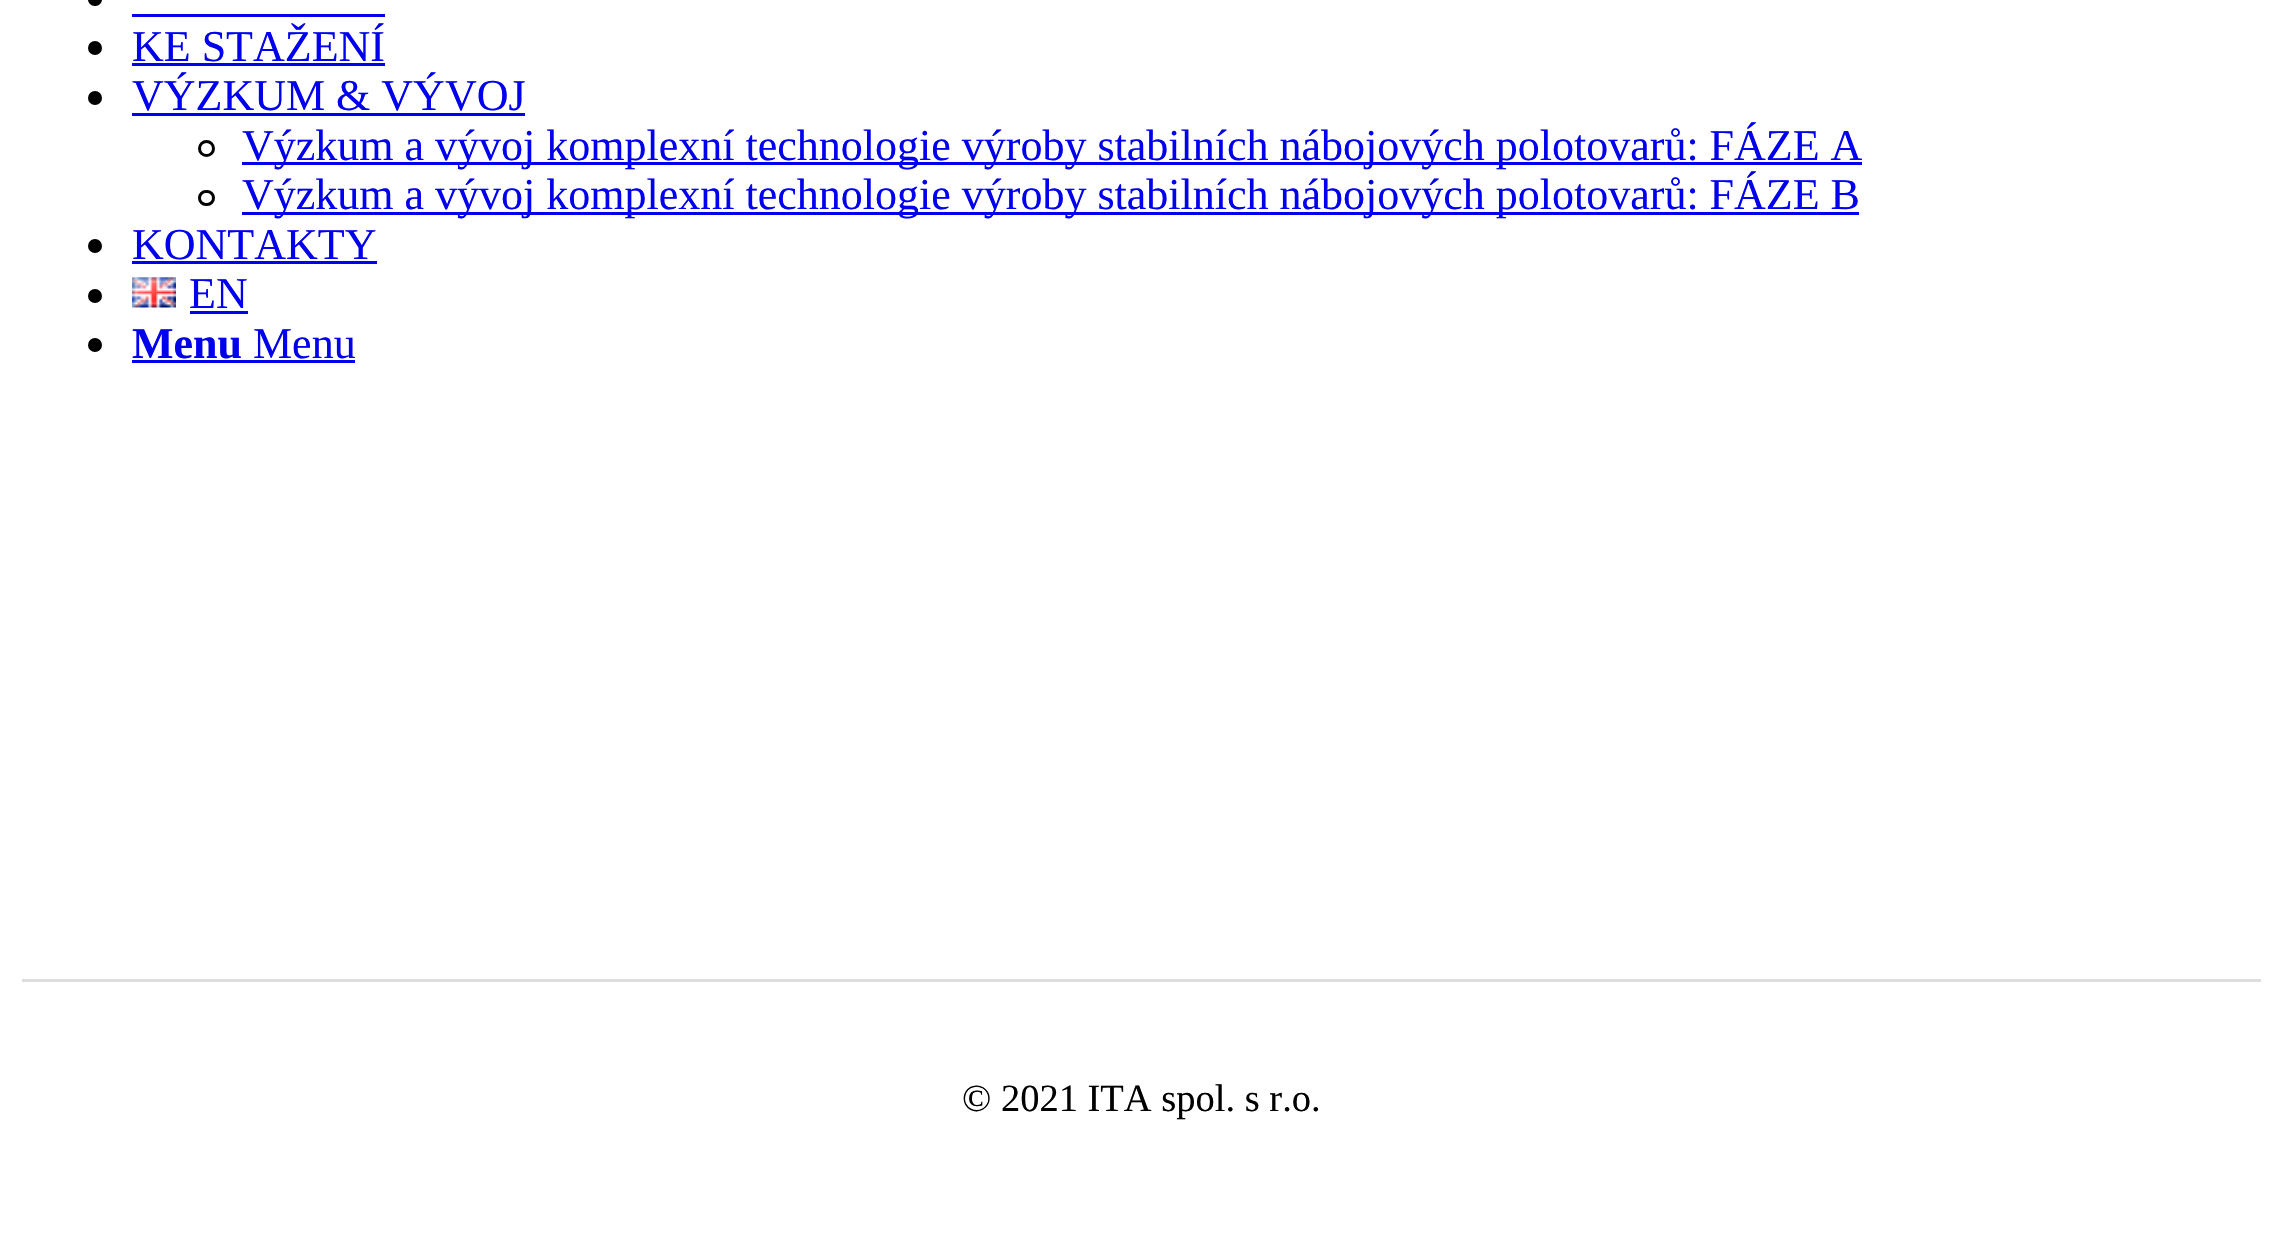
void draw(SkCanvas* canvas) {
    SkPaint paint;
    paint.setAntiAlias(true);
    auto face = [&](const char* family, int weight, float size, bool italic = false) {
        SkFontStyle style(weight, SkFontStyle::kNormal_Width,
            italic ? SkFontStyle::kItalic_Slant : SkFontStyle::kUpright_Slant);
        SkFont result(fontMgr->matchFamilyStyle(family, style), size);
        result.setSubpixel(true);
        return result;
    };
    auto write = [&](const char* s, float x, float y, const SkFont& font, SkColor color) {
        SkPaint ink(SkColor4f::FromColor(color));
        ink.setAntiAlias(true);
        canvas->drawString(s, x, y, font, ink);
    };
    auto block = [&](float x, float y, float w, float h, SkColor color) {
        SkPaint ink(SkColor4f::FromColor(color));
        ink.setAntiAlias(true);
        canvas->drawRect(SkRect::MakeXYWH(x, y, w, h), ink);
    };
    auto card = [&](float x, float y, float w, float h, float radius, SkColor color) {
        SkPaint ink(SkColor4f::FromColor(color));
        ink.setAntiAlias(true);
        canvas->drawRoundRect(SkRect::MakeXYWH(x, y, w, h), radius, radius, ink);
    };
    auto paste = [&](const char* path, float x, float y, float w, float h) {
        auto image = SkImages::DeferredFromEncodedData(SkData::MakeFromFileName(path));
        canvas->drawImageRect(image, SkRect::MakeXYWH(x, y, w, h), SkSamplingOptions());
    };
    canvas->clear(SK_ColorWHITE);
    card(88, -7, 14, 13, 7, SK_ColorBLACK);
    block(132, 14, 253, 3, SkColorSetRGB(0, 0, 238));
    paint.setColor(SK_ColorBLACK);
    canvas->drawCircle(95, 48, 7, paint);
    auto kFont1 = face("Liberation Serif", 400, 44);
    write("KE STAŽENÍ", 132, 61, kFont1, SkColorSetRGB(0, 0, 238));
    block(132, 63, 253, 3, SkColorSetRGB(0, 0, 238));
    canvas->drawCircle(95, 98, 7, paint);
    write("VÝZKUM & VÝVOJ", 132, 110, kFont1, SkColorSetRGB(0, 0, 238));
    block(132, 113, 393, 3, SkColorSetRGB(0, 0, 238));
    paint.setStyle(SkPaint::kStroke_Style);
    paint.setStrokeWidth(3);
    canvas->drawCircle(206.5f, 148.5f, 7, paint);
    block(242, 162, 1620, 3, SkColorSetRGB(0, 0, 238));
    write("Výzkum a vývoj komplexní technologie výroby stabilních nábojových polotovarů: FÁZE A", 242, 160, kFont1, SkColorSetRGB(0, 0, 238));
    canvas->drawRoundRect(SkRect::MakeXYWH(199.5f, 191.5f, 14, 13), 6.5f, 6.5f, paint);
    block(242, 212, 1617, 3, SkColorSetRGB(0, 0, 238));
    write("Výzkum a vývoj komplexní technologie výroby stabilních nábojových polotovarů: FÁZE B", 242, 209, kFont1, SkColorSetRGB(0, 0, 238));
    paint.setStyle(SkPaint::kFill_Style);
    canvas->drawCircle(95, 246, 7, paint);
    write("KONTAKTY", 132, 259, kFont1, SkColorSetRGB(0, 0, 238));
    block(132, 261, 245, 3, SkColorSetRGB(0, 0, 238));
    canvas->drawCircle(95, 296, 7, paint);
    paste("pic1.png", 132, 277, 44, 31);
    write("EN", 189, 308, kFont1, SkColorSetRGB(0, 0, 238));
    block(190, 311, 58, 3, SkColorSetRGB(0, 0, 238));
    canvas->drawCircle(95, 345, 7, paint);
    auto kFont2 = face("Liberation Serif", 700, 44);
    write("Menu", 132, 358, kFont2, SkColorSetRGB(0, 0, 238));
    block(132, 360, 223, 3, SkColorSetRGB(0, 0, 238));
    write("Menu", 253, 358, kFont1, SkColorSetRGB(0, 0, 238));
    block(22, 979, 2239, 3, SkColorSetRGB(221, 221, 221));
    auto kFont3 = face("Liberation Serif", 400, 38.5f);
    write("© 2021 ITA spol. s r.o.", 962, 1111, kFont3, SK_ColorBLACK);
}
